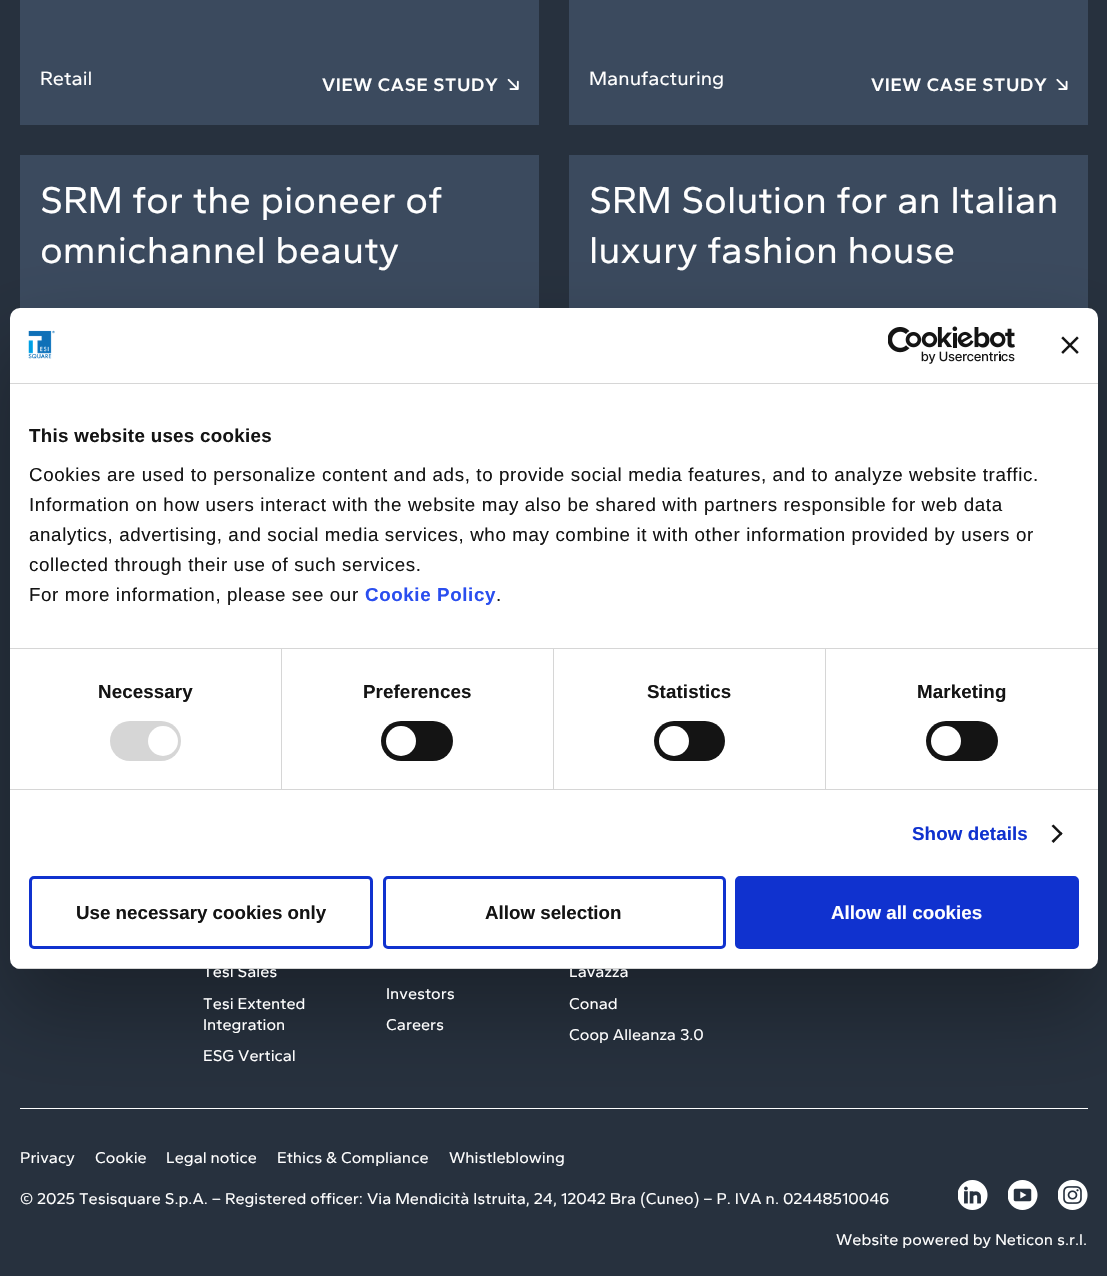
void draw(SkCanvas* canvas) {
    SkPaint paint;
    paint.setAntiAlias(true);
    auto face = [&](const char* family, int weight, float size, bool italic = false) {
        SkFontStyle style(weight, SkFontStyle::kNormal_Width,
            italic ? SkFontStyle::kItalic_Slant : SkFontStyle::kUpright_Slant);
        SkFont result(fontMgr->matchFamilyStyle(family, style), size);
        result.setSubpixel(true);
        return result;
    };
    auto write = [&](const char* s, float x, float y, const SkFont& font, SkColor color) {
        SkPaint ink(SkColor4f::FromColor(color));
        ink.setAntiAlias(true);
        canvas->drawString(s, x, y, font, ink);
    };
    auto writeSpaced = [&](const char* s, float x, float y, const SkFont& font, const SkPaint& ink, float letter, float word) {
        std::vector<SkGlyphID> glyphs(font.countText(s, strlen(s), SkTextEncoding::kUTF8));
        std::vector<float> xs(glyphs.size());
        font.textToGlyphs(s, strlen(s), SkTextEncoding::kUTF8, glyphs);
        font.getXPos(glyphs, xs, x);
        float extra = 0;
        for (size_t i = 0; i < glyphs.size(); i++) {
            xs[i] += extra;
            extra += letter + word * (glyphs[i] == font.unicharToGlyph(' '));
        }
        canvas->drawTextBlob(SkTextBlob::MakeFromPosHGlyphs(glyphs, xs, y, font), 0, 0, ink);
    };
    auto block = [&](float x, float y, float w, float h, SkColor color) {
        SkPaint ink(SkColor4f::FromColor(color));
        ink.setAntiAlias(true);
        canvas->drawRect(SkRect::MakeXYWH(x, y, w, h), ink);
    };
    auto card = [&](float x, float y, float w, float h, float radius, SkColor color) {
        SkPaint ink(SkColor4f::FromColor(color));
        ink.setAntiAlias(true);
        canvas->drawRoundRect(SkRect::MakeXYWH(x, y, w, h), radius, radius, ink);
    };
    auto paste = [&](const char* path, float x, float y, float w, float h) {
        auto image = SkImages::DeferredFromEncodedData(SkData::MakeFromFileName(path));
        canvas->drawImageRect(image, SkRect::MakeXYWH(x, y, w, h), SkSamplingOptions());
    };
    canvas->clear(SkColorSetRGB(39, 49, 62));
    block(20, 0, 519, 125, SkColorSetRGB(59, 74, 94));
    auto kFont1 = face("Gantari", 400, 20);
    write("Retail", 40, 85, kFont1, SK_ColorWHITE);
    auto kFont2 = face("Gantari", 600, 18.75f);
    paint.setColor(SK_ColorWHITE);
    writeSpaced("VIEW CASE STUDY", 322, 91, kFont2, paint, 0.62f, 0);
    paste("pic1.png", 507, 78, 12, 12);
    block(569, 0, 519, 125, SkColorSetRGB(59, 74, 94));
    write("Manufacturing", 589, 85, kFont1, SK_ColorWHITE);
    writeSpaced("VIEW CASE STUDY", 871, 91, kFont2, paint, 0.62f, 0);
    paste("pic2.png", 1056, 78, 12, 12);
    block(20, 155, 519, 153, SkColorSetRGB(59, 74, 94));
    auto kFont3 = face("Gantari", 400, 38.75f);
    write("SRM for the pioneer of", 40, 213, kFont3, SK_ColorWHITE);
    write("omnichannel beauty", 40, 263, kFont3, SK_ColorWHITE);
    block(569, 155, 519, 153, SkColorSetRGB(59, 74, 94));
    write("SRM Solution for an Italian", 589, 213, kFont3, SK_ColorWHITE);
    write("luxury fashion house", 589, 263, kFont3, SK_ColorWHITE);
    block(20, 1108, 1068, 1, SK_ColorWHITE);
    paint.setColor(SkColorSetARGB(77, 0, 0, 0));
    paint.setMaskFilter(SkMaskFilter::MakeBlur(kNormal_SkBlurStyle, 42.5f));
    canvas->drawRoundRect(SkRect::MakeXYWH(10, 348, 1088, 661), 10, 10, paint);
    paint.setMaskFilter(nullptr);
    card(10, 308, 1088, 661, 10, SK_ColorWHITE);
    block(10, 383, 1088, 1, SkColorSetRGB(214, 214, 214));
    paste("pic3.png", 28, 330, 27, 29);
    paste("pic4.png", 888, 326, 127, 38);
    paste("pic5.png", 1061, 336, 18, 18);
    block(10, 648, 1088, 1, SkColorSetRGB(214, 214, 214));
    auto kFont4 = face("Liberation Sans", 700, 18.75f);
    paint.setColor(SkColorSetRGB(20, 20, 20));
    writeSpaced("This website uses cookies", 29, 442, kFont4, paint, 0.3f, 0);
    auto kFont5 = face("Liberation Sans", 400, 18.75f);
    writeSpaced("Cookies are used to personalize content and ads, to provide social media features, and to analyze website traffic.", 29, 481, kFont5, paint, 0.62f, 0);
    writeSpaced("Information on how users interact with the website may also be shared with partners responsible for web data", 29, 511, kFont5, paint, 0.62f, 0);
    writeSpaced("analytics, advertising, and social media services, who may combine it with other information provided by users or", 29, 541, kFont5, paint, 0.62f, 0);
    writeSpaced("collected through their use of such services.", 29, 571, kFont5, paint, 0.62f, 0);
    writeSpaced("For more information, please see our", 29, 601, kFont5, paint, 0.62f, 0);
    paint.setColor(SkColorSetRGB(42, 78, 239));
    writeSpaced("Cookie Policy", 365, 601, kFont4, paint, 0.62f, 0);
    paint.setColor(SkColorSetRGB(20, 20, 20));
    writeSpaced(".", 496, 601, kFont5, paint, 0.62f, 0);
    block(10, 789, 1088, 1, SkColorSetRGB(214, 214, 214));
    block(281, 649, 1, 140, SkColorSetRGB(214, 214, 214));
    writeSpaced("Necessary", 98, 698, kFont4, paint, 0.1f, 0);
    card(110, 721, 71, 40, 20, SkColorSetRGB(214, 214, 214));
    paint.setColor(SK_ColorWHITE);
    canvas->drawCircle(163, 741, 15, paint);
    block(553, 649, 1, 140, SkColorSetRGB(214, 214, 214));
    paint.setColor(SkColorSetRGB(20, 20, 20));
    writeSpaced("Preferences", 363, 698, kFont4, paint, 0.1f, 0);
    card(381, 721, 72, 40, 20, SkColorSetRGB(20, 20, 20));
    paint.setColor(SK_ColorWHITE);
    canvas->drawCircle(401, 741, 15, paint);
    block(825, 649, 1, 140, SkColorSetRGB(214, 214, 214));
    paint.setColor(SkColorSetRGB(20, 20, 20));
    writeSpaced("Statistics", 647, 698, kFont4, paint, 0.1f, 0);
    card(654, 721, 71, 40, 20, SkColorSetRGB(20, 20, 20));
    paint.setColor(SK_ColorWHITE);
    canvas->drawCircle(674, 741, 15, paint);
    paint.setColor(SkColorSetRGB(20, 20, 20));
    writeSpaced("Marketing", 917, 698, kFont4, paint, 0.1f, 0);
    card(926, 721, 72, 40, 20, SkColorSetRGB(20, 20, 20));
    paint.setColor(SK_ColorWHITE);
    canvas->drawCircle(946, 741, 15, paint);
    paint.setColor(SkColorSetRGB(16, 50, 207));
    writeSpaced("Show details", 912, 840, kFont4, paint, 0.1f, 0);
    paint.setColor(SkColorSetRGB(20, 20, 20));
    canvas->drawPath(SkPathBuilder().moveTo(1053.5f, 824.5f).lineTo(1062.5f, 833.5f).lineTo(1061, 835.5f).lineTo(1051.5f, 826).close().detach(), paint);
    canvas->drawPath(SkPathBuilder().moveTo(1061, 832).lineTo(1062.5f, 833.5f).lineTo(1053.5f, 843).lineTo(1051.5f, 841).close().detach(), paint);
    auto kFont6 = face("Gantari", 400, 16.25f);
    write("Tesi Sales", 203, 977, kFont6, SK_ColorWHITE);
    write("Lavazza", 569, 977, kFont6, SK_ColorWHITE);
    canvas->save();
    canvas->clipPath(SkPathBuilder().moveTo(20, 308).lineTo(1088, 308).cubicTo(1093.5f, 308, 1098, 312.5f, 1098, 318).lineTo(1098, 959).cubicTo(1098, 964.5f, 1093.5f, 969, 1088, 969).lineTo(20, 969).cubicTo(14.5f, 969, 10, 964.5f, 10, 959).lineTo(10, 318).cubicTo(10, 312.5f, 14.5f, 308, 20, 308).close().detach(), true);
    block(10, 968, 1088, 1, SkColorSetRGB(214, 214, 214));
    canvas->restore();
    paint.setStyle(SkPaint::kStroke_Style);
    paint.setStrokeWidth(3);
    paint.setColor(SkColorSetRGB(16, 50, 207));
    canvas->drawRoundRect(SkRect::MakeXYWH(30.5f, 877.5f, 341, 70), 3.5f, 3.5f, paint);
    write("Use necessary cookies only", 76, 919, kFont4, SkColorSetRGB(20, 20, 20));
    canvas->drawRoundRect(SkRect::MakeXYWH(384.5f, 877.5f, 340, 70), 3.5f, 3.5f, paint);
    write("Allow selection", 485, 919, kFont4, SkColorSetRGB(20, 20, 20));
    paint.setStyle(SkPaint::kFill_Style);
    canvas->drawRoundRect(SkRect::MakeXYWH(736.5f, 877.5f, 341, 70), 3.5f, 3.5f, paint);
    paint.setStyle(SkPaint::kStroke_Style);
    canvas->drawRoundRect(SkRect::MakeXYWH(736.5f, 877.5f, 341, 70), 3.5f, 3.5f, paint);
    write("Allow all cookies", 831, 919, kFont4, SK_ColorWHITE);
    write("Tesi Extented", 203, 1009, kFont6, SK_ColorWHITE);
    write("Integration", 203, 1030, kFont6, SK_ColorWHITE);
    write("ESG Vertical", 203, 1061, kFont6, SK_ColorWHITE);
    write("Investors", 386, 999, kFont6, SK_ColorWHITE);
    write("Careers", 386, 1030, kFont6, SK_ColorWHITE);
    write("Conad", 569, 1009, kFont6, SK_ColorWHITE);
    write("Coop Alleanza 3.0", 569, 1040, kFont6, SK_ColorWHITE);
    write("Privacy", 20, 1163, kFont6, SK_ColorWHITE);
    write("Cookie", 95, 1163, kFont6, SK_ColorWHITE);
    write("Legal notice", 166, 1163, kFont6, SK_ColorWHITE);
    write("Ethics & Compliance", 277, 1163, kFont6, SK_ColorWHITE);
    write("Whistleblowing", 449, 1163, kFont6, SK_ColorWHITE);
    write("© 2025 Tesisquare S.p.A. – Registered officer: Via Mendicità Istruita, 24, 12042 Bra (Cuneo) – P. IVA n. 02448510046", 20, 1204, kFont6, SK_ColorWHITE);
    paste("pic6.png", 958, 1180, 30, 30);
    paste("pic7.png", 1008, 1180, 30, 30);
    paste("pic8.png", 1058, 1180, 30, 30);
    write("Website powered by Neticon s.r.l.", 836, 1245, kFont6, SK_ColorWHITE);
}
